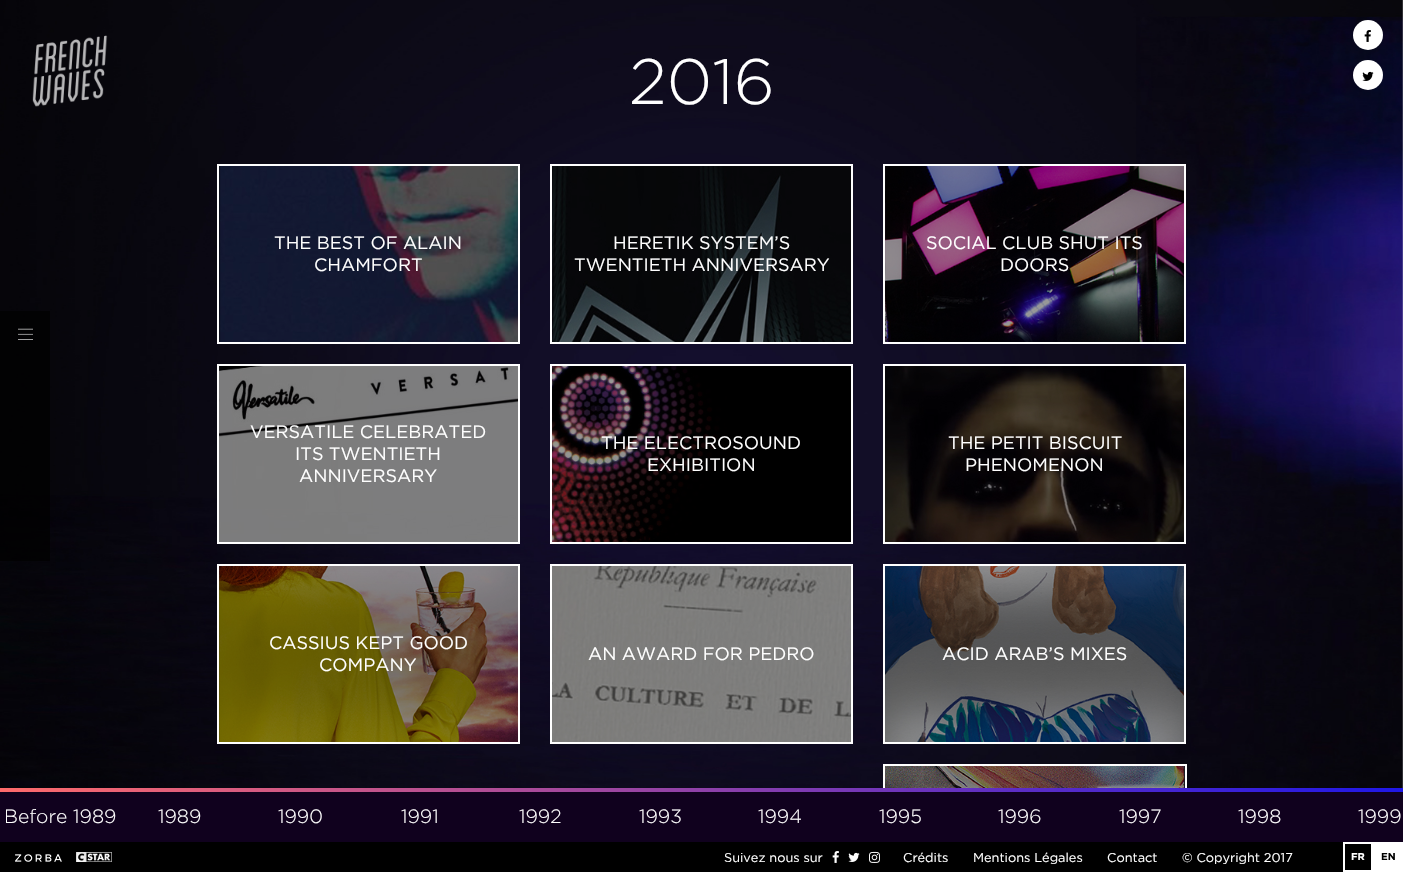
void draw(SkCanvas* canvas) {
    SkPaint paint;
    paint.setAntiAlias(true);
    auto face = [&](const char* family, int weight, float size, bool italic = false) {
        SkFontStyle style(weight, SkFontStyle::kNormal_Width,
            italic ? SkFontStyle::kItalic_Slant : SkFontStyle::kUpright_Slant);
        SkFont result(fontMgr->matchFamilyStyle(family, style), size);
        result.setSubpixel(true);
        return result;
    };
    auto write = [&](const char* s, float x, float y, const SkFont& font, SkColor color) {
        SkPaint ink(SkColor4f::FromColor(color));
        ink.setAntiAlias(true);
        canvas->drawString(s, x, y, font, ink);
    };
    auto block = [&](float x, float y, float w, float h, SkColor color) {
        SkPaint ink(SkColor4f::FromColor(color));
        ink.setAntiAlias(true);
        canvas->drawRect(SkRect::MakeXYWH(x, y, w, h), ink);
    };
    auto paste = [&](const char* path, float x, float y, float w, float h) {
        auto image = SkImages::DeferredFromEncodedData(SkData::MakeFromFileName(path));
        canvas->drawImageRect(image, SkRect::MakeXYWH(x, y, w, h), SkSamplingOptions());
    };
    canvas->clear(SK_ColorWHITE);
    paste("pic3.png", 0, 0, 1403, 788);
    block(0, 311, 50, 250, SkColorSetARGB(191, 0, 0, 0));
    paste("pic1.png", 18, 328, 15, 12);
    paste("pic2.png", 32, 35, 76, 72);
    auto kFont1 = face("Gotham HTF", 300, 64);
    write("2016", 629, 104, kFont1, SK_ColorWHITE);
    paste("pic4.png", 219, 166, 299, 176);
    paint.setStyle(SkPaint::kStroke_Style);
    paint.setStrokeWidth(2);
    paint.setColor(SK_ColorWHITE);
    canvas->drawRect(SkRect::MakeXYWH(218, 165, 301, 178), paint);
    auto kFont2 = face("Gotham HTF", 400, 18);
    write("THE BEST OF ALAIN", 274, 249, kFont2, SK_ColorWHITE);
    write("CHAMFORT", 314, 271, kFont2, SK_ColorWHITE);
    paste("pic5.png", 552, 166, 299, 176);
    canvas->drawRect(SkRect::MakeXYWH(551, 165, 301, 178), paint);
    write("HERETIK SYSTEM’S", 613, 249, kFont2, SK_ColorWHITE);
    write("TWENTIETH ANNIVERSARY", 574, 271, kFont2, SK_ColorWHITE);
    paste("pic6.png", 885, 166, 299, 176);
    canvas->drawRect(SkRect::MakeXYWH(884, 165, 301, 178), paint);
    write("SOCIAL CLUB SHUT ITS", 926, 249, kFont2, SK_ColorWHITE);
    write("DOORS", 1000, 271, kFont2, SK_ColorWHITE);
    paste("pic7.png", 219, 366, 299, 176);
    canvas->drawRect(SkRect::MakeXYWH(218, 365, 301, 178), paint);
    write("VERSATILE CELEBRATED", 250, 438, kFont2, SK_ColorWHITE);
    write("ITS TWENTIETH", 295, 460, kFont2, SK_ColorWHITE);
    write("ANNIVERSARY", 299, 482, kFont2, SK_ColorWHITE);
    paste("pic8.png", 552, 366, 299, 176);
    canvas->drawRect(SkRect::MakeXYWH(551, 365, 301, 178), paint);
    write("THE ELECTROSOUND", 601, 449, kFont2, SK_ColorWHITE);
    write("EXHIBITION", 647, 471, kFont2, SK_ColorWHITE);
    paste("pic9.png", 885, 366, 299, 176);
    canvas->drawRect(SkRect::MakeXYWH(884, 365, 301, 178), paint);
    write("THE PETIT BISCUIT", 948, 449, kFont2, SK_ColorWHITE);
    write("PHENOMENON", 965, 471, kFont2, SK_ColorWHITE);
    paste("pic10.png", 219, 566, 299, 176);
    canvas->drawRect(SkRect::MakeXYWH(218, 565, 301, 178), paint);
    write("CASSIUS KEPT GOOD", 269, 649, kFont2, SK_ColorWHITE);
    write("COMPANY", 319, 671, kFont2, SK_ColorWHITE);
    paste("pic11.png", 552, 566, 299, 176);
    canvas->drawRect(SkRect::MakeXYWH(551, 565, 301, 178), paint);
    write("AN AWARD FOR PEDRO", 588, 660, kFont2, SK_ColorWHITE);
    paste("pic12.png", 885, 566, 299, 176);
    canvas->drawRect(SkRect::MakeXYWH(884, 565, 301, 178), paint);
    write("ACID ARAB’S MIXES", 942, 660, kFont2, SK_ColorWHITE);
    paste("pic13.png", 885, 766, 300, 22);
    canvas->drawRect(SkRect::MakeXYWH(884, 765, 302, 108), paint);
    paint.setStyle(SkPaint::kFill_Style);
    canvas->drawCircle(1368, 35, 15, paint);
    paste("pic14.png", 1364, 30, 7, 12);
    canvas->drawCircle(1368, 75, 15, paint);
    paste("pic15.png", 1362, 71, 12, 10);
    {
        const SkColor colors[] = {SkColorSetRGB(254, 106, 107), SkColorSetRGB(31, 23, 231)};
        const float stops[] = {0, 1};
        const SkPoint ends[] = {{0, 790}, {1403, 790}};
        paint.setShader(SkGradientShader::MakeLinear(ends, colors, stops, 2, SkTileMode::kClamp));
        paint.setAlpha(255);
    }
    canvas->drawRect(SkRect::MakeXYWH(0, 788, 1403, 4), paint);
    block(0, 792, 1403, 50, SkColorSetRGB(16, 1, 30));
    auto kFont3 = face("Gotham HTF", 300, 19.25f);
    write("Before 1989", 4, 823, kFont3, SK_ColorWHITE);
    write("1989", 158, 823, kFont3, SK_ColorWHITE);
    write("1990", 278, 823, kFont3, SK_ColorWHITE);
    write("1991", 401, 823, kFont3, SK_ColorWHITE);
    write("1992", 519, 823, kFont3, SK_ColorWHITE);
    write("1993", 639, 823, kFont3, SK_ColorWHITE);
    write("1994", 758, 823, kFont3, SK_ColorWHITE);
    write("1995", 879, 823, kFont3, SK_ColorWHITE);
    write("1996", 998, 823, kFont3, SK_ColorWHITE);
    write("1997", 1119, 823, kFont3, SK_ColorWHITE);
    write("1998", 1238, 823, kFont3, SK_ColorWHITE);
    write("1999", 1358, 823, kFont3, SK_ColorWHITE);
    block(0, 842, 1371, 30, SK_ColorBLACK);
    paste("pic16.png", 15, 854, 47, 8);
    paste("pic17.png", 76, 852, 36, 10);
    auto kFont4 = face("Gotham HTF", 400, 12.75f);
    write("Suivez nous sur", 724, 862, kFont4, SK_ColorWHITE);
    paste("pic18.png", 832, 851, 7, 12);
    paste("pic19.png", 848, 852, 12, 10);
    paste("pic20.png", 869, 851, 11, 12);
    write("Crédits", 903, 862, kFont4, SK_ColorWHITE);
    write("Mentions Légales", 973, 862, kFont4, SK_ColorWHITE);
    write("Contact", 1107, 862, kFont4, SK_ColorWHITE);
    write("© Copyright 2017", 1182, 862, kFont4, SK_ColorWHITE);
    paint.setStyle(SkPaint::kStroke_Style);
    paint.setShader(nullptr);
    paint.setColor(SK_ColorWHITE);
    canvas->drawRect(SkRect::MakeXYWH(1344, 843, 28, 28), paint);
    auto kFont5 = face("Gotham HTF", 700, 10);
    write("FR", 1351, 860, kFont5, SK_ColorWHITE);
    write("EN", 1381, 860, kFont5, SK_ColorBLACK);
}
